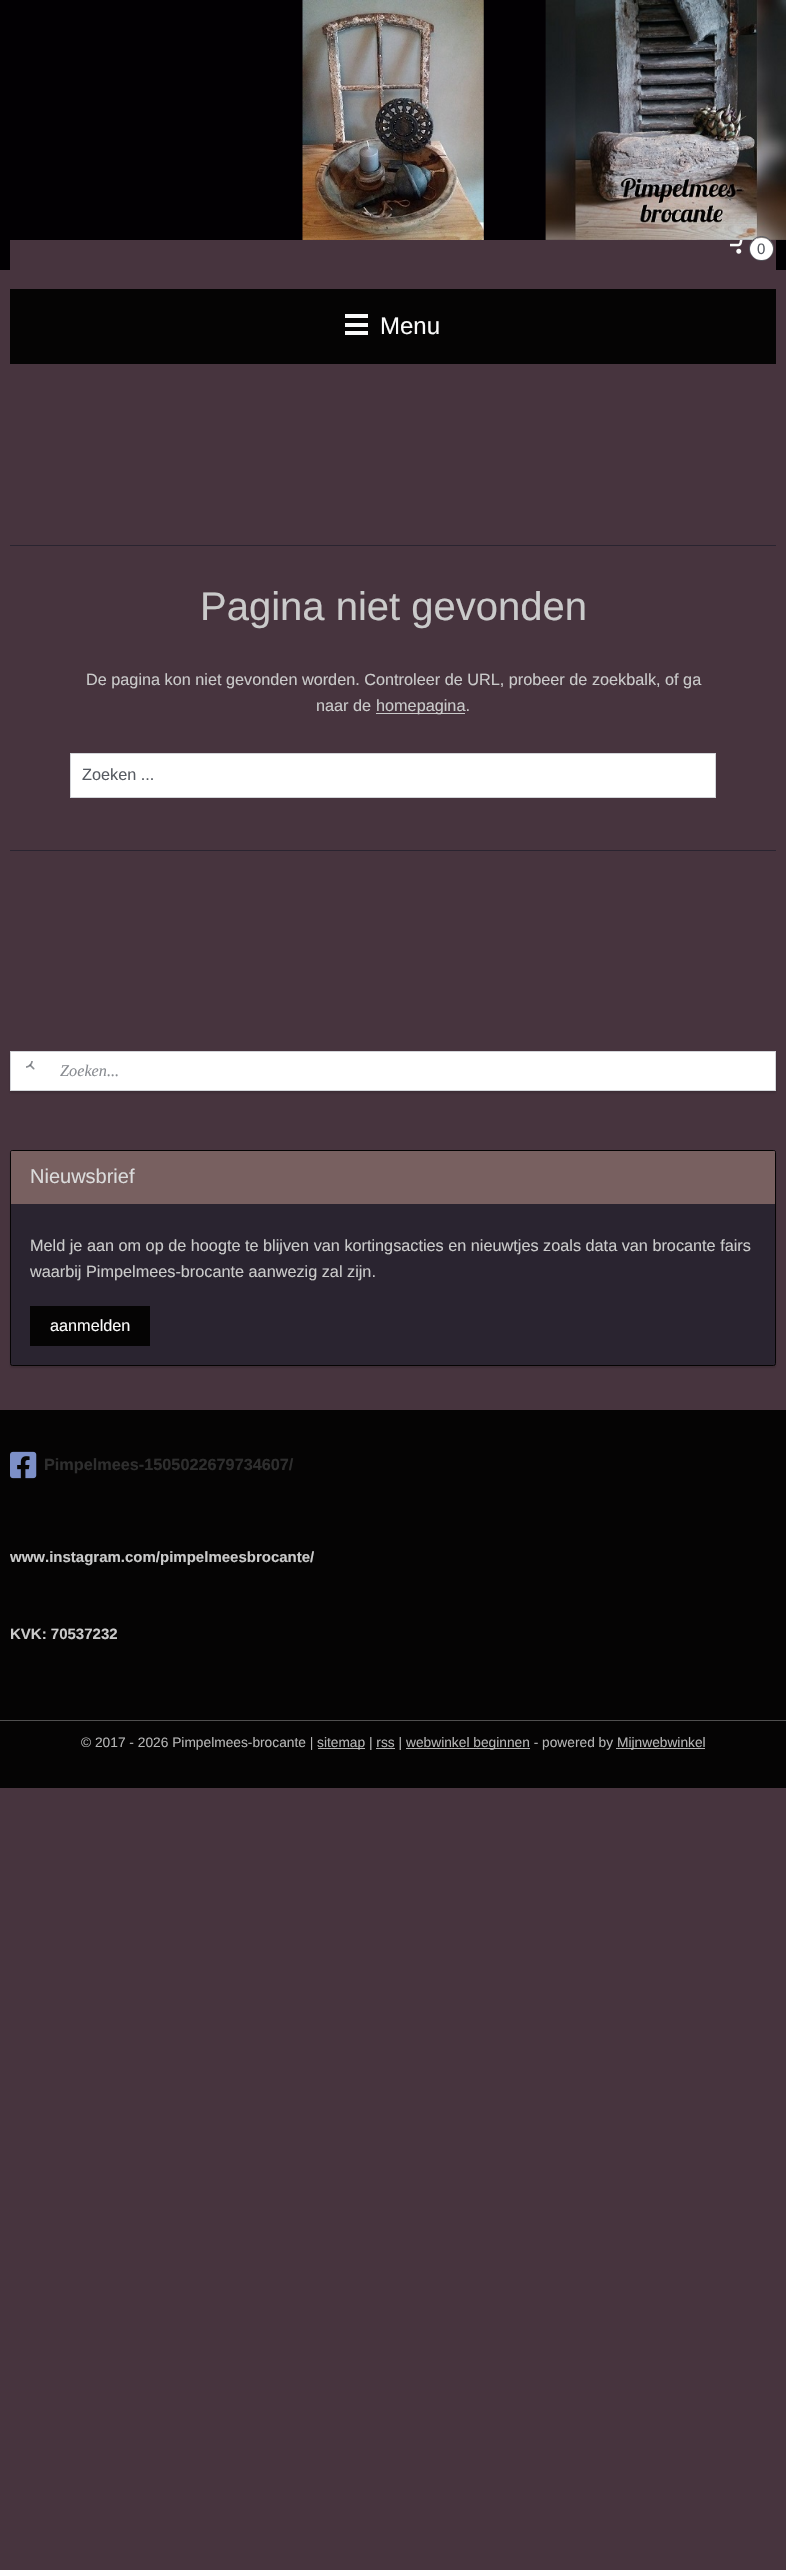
void draw(SkCanvas* canvas) {
    SkPaint paint;
    paint.setAntiAlias(true);
    auto face = [&](const char* family, int weight, float size, bool italic = false) {
        SkFontStyle style(weight, SkFontStyle::kNormal_Width,
            italic ? SkFontStyle::kItalic_Slant : SkFontStyle::kUpright_Slant);
        SkFont result(fontMgr->matchFamilyStyle(family, style), size);
        result.setSubpixel(true);
        return result;
    };
    auto write = [&](const char* s, float x, float y, const SkFont& font, SkColor color) {
        SkPaint ink(SkColor4f::FromColor(color));
        ink.setAntiAlias(true);
        canvas->drawString(s, x, y, font, ink);
    };
    auto block = [&](float x, float y, float w, float h, SkColor color) {
        SkPaint ink(SkColor4f::FromColor(color));
        ink.setAntiAlias(true);
        canvas->drawRect(SkRect::MakeXYWH(x, y, w, h), ink);
    };
    auto card = [&](float x, float y, float w, float h, float radius, SkColor color) {
        SkPaint ink(SkColor4f::FromColor(color));
        ink.setAntiAlias(true);
        canvas->drawRoundRect(SkRect::MakeXYWH(x, y, w, h), radius, radius, ink);
    };
    auto paste = [&](const char* path, float x, float y, float w, float h) {
        auto image = SkImages::DeferredFromEncodedData(SkData::MakeFromFileName(path));
        canvas->drawImageRect(image, SkRect::MakeXYWH(x, y, w, h), SkSamplingOptions());
    };
    canvas->clear(SkColorSetRGB(71, 52, 62));
    block(0, 0, 786, 270, SkColorSetRGB(2, 0, 3));
    paste("pic1.png", 302, 0, 182, 240);
    paste("pic2.png", 545, 0, 241, 240);
    block(10, 240, 766, 30, SkColorSetRGB(71, 52, 62));
    paste("pic3.png", 730, 240, 13, 14);
    paint.setStyle(SkPaint::kStroke_Style);
    paint.setStrokeWidth(1);
    paint.setColor(SkColorSetRGB(87, 91, 98));
    canvas->drawCircle(761.5f, 248.5f, 12, paint);
    card(750, 238, 23, 22, 11, SK_ColorWHITE);
    auto kFont1 = face("Liberation Sans", 400, 15);
    write("0", 757, 254, kFont1, SkColorSetRGB(87, 91, 98));
    block(10, 289, 766, 75, SkColorSetRGB(5, 4, 4));
    block(345, 323, 23, 4, SkColorSetRGB(250, 250, 250));
    block(345, 314, 23, 4, SkColorSetRGB(250, 250, 250));
    block(345, 331, 23, 4, SkColorSetRGB(250, 250, 250));
    auto kFont2 = face("Liberation Sans", 400, 24);
    write("Menu", 380, 334, kFont2, SkColorSetRGB(250, 250, 250));
    block(10, 545, 766, 1, SkColorSetRGB(42, 36, 48));
    block(10, 850, 766, 1, SkColorSetRGB(42, 36, 48));
    auto kFont3 = face("Liberation Sans", 400, 40);
    write("Pagina niet gevonden", 200, 620, kFont3, SkColorSetRGB(202, 202, 202));
    auto kFont4 = face("Liberation Sans", 400, 16.25f);
    write("De pagina kon niet gevonden worden. Controleer de URL, probeer de zoekbalk, of ga", 86, 685, kFont4, SkColorSetRGB(202, 202, 202));
    write("naar de", 316, 711, kFont4, SkColorSetRGB(202, 202, 202));
    block(376, 713, 89, 1, SkColorSetRGB(202, 202, 202));
    write("homepagina.", 376, 711, kFont4, SkColorSetRGB(202, 202, 202));
    paint.setStyle(SkPaint::kFill_Style);
    paint.setColor(SK_ColorWHITE);
    canvas->drawRect(SkRect::MakeXYWH(70.5f, 753.5f, 645, 44), paint);
    paint.setStyle(SkPaint::kStroke_Style);
    paint.setColor(SkColorSetRGB(211, 213, 217));
    canvas->drawRect(SkRect::MakeXYWH(70.5f, 753.5f, 645, 44), paint);
    write("Zoeken ...", 82, 780, kFont4, SkColorSetRGB(87, 91, 98));
    paint.setStyle(SkPaint::kFill_Style);
    paint.setColor(SkColorSetARGB(38, 0, 0, 0));
    paint.setMaskFilter(SkMaskFilter::MakeBlur(kNormal_SkBlurStyle, 1));
    canvas->drawRect(SkRect::MakeXYWH(10, 1053, 766, 40), paint);
    paint.setMaskFilter(nullptr);
    paint.setColor(SK_ColorWHITE);
    canvas->drawRect(SkRect::MakeXYWH(10.5f, 1051.5f, 765, 39), paint);
    paint.setStyle(SkPaint::kStroke_Style);
    paint.setColor(SkColorSetRGB(211, 213, 217));
    canvas->drawRect(SkRect::MakeXYWH(10.5f, 1051.5f, 765, 39), paint);
    paste("pic4.png", 26, 1061, 9, 9);
    auto kFont5 = face("Liberation Serif", 400, 16.25f, true);
    write("Zoeken...", 60, 1076, kFont5, SkColorSetRGB(137, 140, 145));
    paint.setStyle(SkPaint::kFill_Style);
    paint.setColor(SkColorSetARGB(38, 0, 0, 0));
    paint.setMaskFilter(SkMaskFilter::MakeBlur(kNormal_SkBlurStyle, 1));
    canvas->drawRoundRect(SkRect::MakeXYWH(10, 1151, 766, 217), 2.5f, 2.5f, paint);
    paint.setMaskFilter(nullptr);
    paint.setColor(SkColorSetRGB(42, 36, 48));
    canvas->drawRoundRect(SkRect::MakeXYWH(10.5f, 1150.5f, 765, 215), 2, 2, paint);
    paint.setStyle(SkPaint::kStroke_Style);
    paint.setColor(SkColorSetRGB(5, 4, 4));
    canvas->drawRoundRect(SkRect::MakeXYWH(10.5f, 1150.5f, 765, 215), 2, 2, paint);
    paint.setStyle(SkPaint::kFill_Style);
    paint.setColor(SkColorSetRGB(120, 96, 96));
    canvas->drawPath(SkPathBuilder().moveTo(12, 1151).lineTo(774, 1151).cubicTo(774.5f, 1151, 775, 1151.5f, 775, 1152).lineTo(775, 1204).lineTo(11, 1204).lineTo(11, 1152).cubicTo(11, 1151.5f, 11.5f, 1151, 12, 1151).close().detach(), paint);
    auto kFont6 = face("Liberation Sans", 400, 20);
    write("Nieuwsbrief", 30, 1183, kFont6, SkColorSetRGB(219, 219, 219));
    write("Meld je aan om op de hoogte te blijven van kortingsacties en nieuwtjes zoals data van brocante fairs", 30, 1251, kFont4, SkColorSetRGB(202, 202, 202));
    write("waarbij Pimpelmees-brocante aanwezig zal zijn.", 30, 1277, kFont4, SkColorSetRGB(202, 202, 202));
    block(30, 1306, 120, 40, SkColorSetRGB(5, 4, 4));
    write("aanmelden", 50, 1331, kFont4, SkColorSetRGB(250, 250, 250));
    block(0, 1410, 786, 310, SkColorSetRGB(5, 4, 4));
    paste("pic5.png", 10, 1451, 27, 28);
    auto kFont7 = face("Liberation Sans", 700, 16.25f);
    write("Pimpelmees-1505022679734607/", 44, 1470, kFont7, SkColorSetRGB(46, 46, 46));
    auto kFont8 = face("Liberation Sans", 700, 15);
    write("www.instagram.com/pimpelmeesbrocante/", 10, 1562, kFont8, SkColorSetRGB(202, 202, 202));
    write("KVK: 70537232", 10, 1639, kFont8, SkColorSetRGB(202, 202, 202));
    block(0, 1721, 786, 67, SkColorSetRGB(5, 4, 4));
    block(0, 1720, 786, 1, SkColorSetRGB(80, 79, 79));
    auto kFont9 = face("Liberation Sans", 400, 13.75f);
    write("© 2017 - 2026 Pimpelmees-brocante |", 81, 1747, kFont9, SkColorSetRGB(180, 180, 180));
    block(318, 1748, 47, 1, SkColorSetRGB(180, 180, 180));
    write("sitemap | rss |", 317, 1747, kFont9, SkColorSetRGB(180, 180, 180));
    block(406, 1748, 124, 1, SkColorSetRGB(180, 180, 180));
    write("webwinkel beginnen - powered by", 406, 1747, kFont9, SkColorSetRGB(180, 180, 180));
    block(616, 1748, 89, 1, SkColorSetRGB(180, 180, 180));
    write("Mijnwebwinkel", 617, 1747, kFont9, SkColorSetRGB(180, 180, 180));
    block(376, 1748, 19, 1, SkColorSetRGB(180, 180, 180));
}
